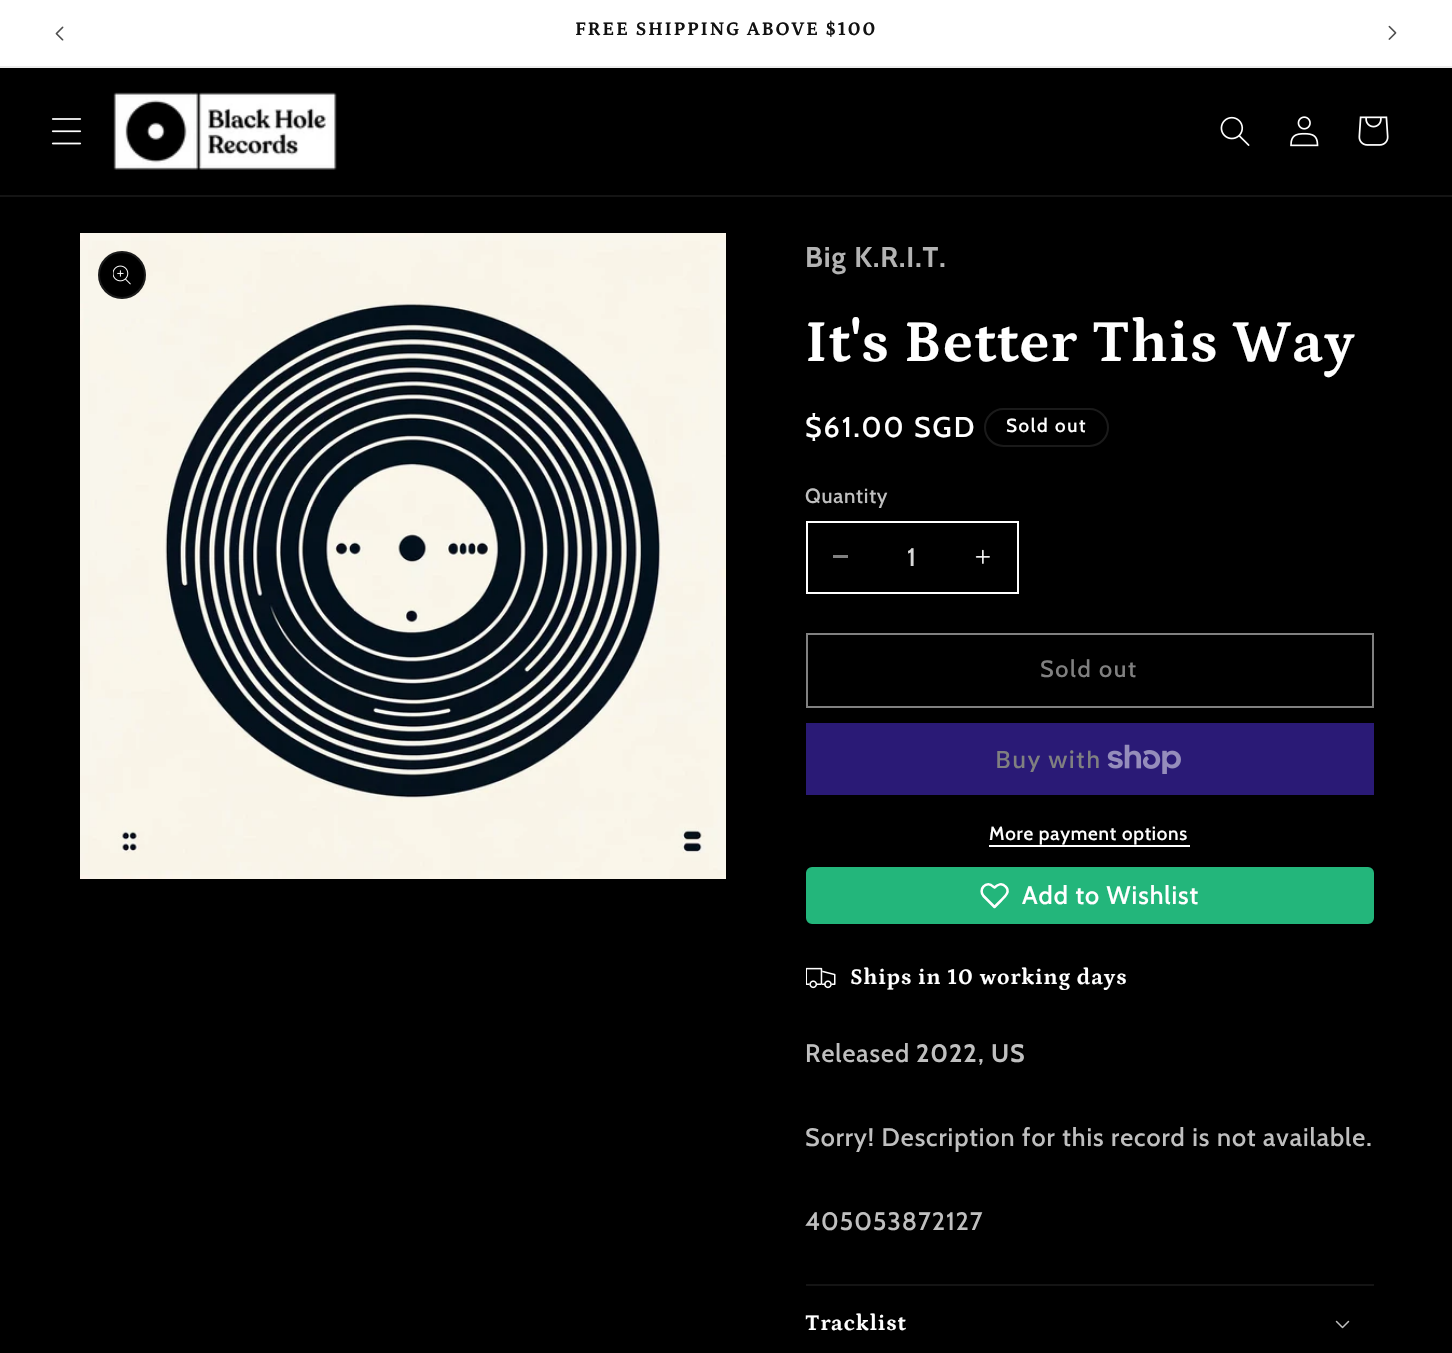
void draw(SkCanvas* canvas) {
    SkPaint paint;
    paint.setAntiAlias(true);
    auto face = [&](const char* family, int weight, float size, bool italic = false) {
        SkFontStyle style(weight, SkFontStyle::kNormal_Width,
            italic ? SkFontStyle::kItalic_Slant : SkFontStyle::kUpright_Slant);
        SkFont result(fontMgr->matchFamilyStyle(family, style), size);
        result.setSubpixel(true);
        return result;
    };
    auto write = [&](const char* s, float x, float y, const SkFont& font, SkColor color) {
        SkPaint ink(SkColor4f::FromColor(color));
        ink.setAntiAlias(true);
        canvas->drawString(s, x, y, font, ink);
    };
    auto writeSpaced = [&](const char* s, float x, float y, const SkFont& font, const SkPaint& ink, float letter, float word) {
        std::vector<SkGlyphID> glyphs(font.countText(s, strlen(s), SkTextEncoding::kUTF8));
        std::vector<float> xs(glyphs.size());
        font.textToGlyphs(s, strlen(s), SkTextEncoding::kUTF8, glyphs);
        font.getXPos(glyphs, xs, x);
        float extra = 0;
        for (size_t i = 0; i < glyphs.size(); i++) {
            xs[i] += extra;
            extra += letter + word * (glyphs[i] == font.unicharToGlyph(' '));
        }
        canvas->drawTextBlob(SkTextBlob::MakeFromPosHGlyphs(glyphs, xs, y, font), 0, 0, ink);
    };
    auto block = [&](float x, float y, float w, float h, SkColor color) {
        SkPaint ink(SkColor4f::FromColor(color));
        ink.setAntiAlias(true);
        canvas->drawRect(SkRect::MakeXYWH(x, y, w, h), ink);
    };
    auto paste = [&](const char* path, float x, float y, float w, float h) {
        auto image = SkImages::DeferredFromEncodedData(SkData::MakeFromFileName(path));
        canvas->drawImageRect(image, SkRect::MakeXYWH(x, y, w, h), SkSamplingOptions());
    };
    canvas->clear(SK_ColorBLACK);
    block(0, 0, 1452, 66, SK_ColorWHITE);
    block(0, 66, 1452, 2, SkColorSetRGB(236, 236, 236));
    paste("pic1.png", 55, 26, 9, 15);
    auto kFont1 = face("Petrona", 700, 19.5f);
    paint.setColor(SkColorSetRGB(18, 18, 18));
    writeSpaced("FREE SHIPPING ABOVE $100", 575, 35, kFont1, paint, 1.6f, 0);
    paste("pic2.png", 1388, 25, 9, 15);
    block(0, 195, 1452, 2, SkColorSetRGB(20, 20, 20));
    paste("pic3.png", 51, 118, 31, 27);
    paste("pic4.png", 113, 92, 224, 78);
    paste("pic5.png", 1220, 116, 30, 30);
    paste("pic6.png", 1290, 116, 29, 31);
    paste("pic7.png", 1358, 116, 31, 30);
    paste("pic8.png", 80, 233, 646, 646);
    paint.setColor(SK_ColorBLACK);
    canvas->drawCircle(122, 275, 24, paint);
    paint.setStyle(SkPaint::kStroke_Style);
    paint.setStrokeWidth(2);
    paint.setColor(SkColorSetARGB(26, 255, 255, 255));
    canvas->drawCircle(122, 275, 23, paint);
    paste("pic9.png", 113, 265, 18, 20);
    auto kFont2 = face("Cabin", 700, 28.5f);
    paint.setStyle(SkPaint::kFill_Style);
    paint.setColor(SkColorSetRGB(179, 179, 179));
    writeSpaced("Big K.R.I.T.", 805, 267, kFont2, paint, 0.95f, 0);
    auto kFont3 = face("Petrona", 700, 60);
    paint.setColor(SK_ColorWHITE);
    writeSpaced("It's Better This Way", 805, 361, kFont3, paint, 0.9f, 0);
    auto kFont4 = face("Cabin", 500, 28.5f);
    writeSpaced("$61.00 SGD", 805, 437, kFont4, paint, 2, 0);
    paint.setStyle(SkPaint::kStroke_Style);
    paint.setColor(SkColorSetRGB(26, 26, 26));
    canvas->drawRoundRect(SkRect::MakeXYWH(985, 409, 123, 37), 18.5f, 18.5f, paint);
    auto kFont5 = face("Cabin", 500, 18.9f);
    paint.setStyle(SkPaint::kFill_Style);
    paint.setColor(SK_ColorWHITE);
    writeSpaced("Sold out", 1006, 432, kFont5, paint, 1.6f, 0);
    auto kFont6 = face("Cabin", 500, 20.5f);
    paint.setColor(SkColorSetRGB(191, 191, 191));
    writeSpaced("Quantity", 805, 503, kFont6, paint, 0.75f, 0);
    block(833, 555, 15, 3, SkColorSetRGB(128, 128, 128));
    paste("pic10.png", 975, 549, 15, 15);
    paint.setStyle(SkPaint::kStroke_Style);
    paint.setColor(SK_ColorWHITE);
    canvas->drawRect(SkRect::MakeXYWH(807, 522, 211, 71), paint);
    auto kFont7 = face("Cabin", 500, 25.2f);
    write("1", 907, 566, kFont7, SkColorSetRGB(217, 217, 217));
    paint.setColor(SkColorSetRGB(128, 128, 128));
    canvas->drawRect(SkRect::MakeXYWH(807, 634, 566, 73), paint);
    auto kFont8 = face("Cabin", 500, 23.5f);
    paint.setStyle(SkPaint::kFill_Style);
    writeSpaced("Sold out", 1040, 677, kFont8, paint, 1.6f, 0);
    block(806, 723, 568, 72, SkColorSetRGB(42, 26, 118));
    auto kFont9 = face("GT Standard", 500, 24);
    writeSpaced("Buy with", 995, 768, kFont9, paint, 0.95f, 0);
    paste("pic11.png", 1107, 744, 74, 30);
    paint.setColor(SK_ColorWHITE);
    writeSpaced("More payment options", 989, 840, kFont5, paint, 0.75f, 0);
    block(989, 845, 201, 2, SK_ColorWHITE);
    paint.setColor(SkColorSetRGB(35, 182, 123));
    canvas->drawRoundRect(SkRect::MakeXYWH(807, 868, 566, 55), 5, 5, paint);
    paint.setStyle(SkPaint::kStroke_Style);
    canvas->drawRoundRect(SkRect::MakeXYWH(807, 868, 566, 55), 5, 5, paint);
    paint.setStrokeWidth(2.5f);
    paint.setStrokeCap(SkPaint::kRound_Cap);
    paint.setStrokeJoin(SkPaint::kRound_Join);
    paint.setColor(SK_ColorWHITE);
    canvas->drawPath(SkPathBuilder().moveTo(1005.5f, 886.5f).cubicTo(1002, 882.5f, 997.5f, 884.5f, 994.5f, 887.5f).lineTo(993, 886.5f).cubicTo(990.5f, 883.5f, 986, 883.5f, 983.5f, 886.5f).cubicTo(981, 889, 981, 893.5f, 983.5f, 896).lineTo(994.5f, 907).lineTo(1001, 900.5f).cubicTo(1004.5f, 897, 1011, 891.5f, 1005.5f, 886.5f).close().detach(), paint);
    paint.setStyle(SkPaint::kFill_Style);
    writeSpaced("Add to Wishlist", 1022, 904, kFont7, paint, 0.95f, 0);
    paste("pic12.png", 806, 967, 30, 22);
    auto kFont10 = face("Petrona", 700, 22.5f);
    writeSpaced("Ships in 10 working days", 850, 984, kFont10, paint, 0.9f, 0);
    paint.setColor(SkColorSetRGB(191, 191, 191));
    writeSpaced("Released", 805, 1062, kFont7, paint, 0.95f, 0);
    auto kFont11 = face("Cabin", 700, 25.2f);
    writeSpaced("2022", 916, 1062, kFont11, paint, 0.95f, 0);
    writeSpaced(",", 978, 1062, kFont7, paint, 0.95f, 0);
    writeSpaced("US", 991, 1062, kFont11, paint, 0.95f, 0);
    writeSpaced("Sorry! Description for this record is not available.", 805, 1146, kFont7, paint, 0.95f, 0);
    writeSpaced("405053872127", 805, 1230, kFont7, paint, 0.95f, 0);
    block(806, 1284, 568, 2, SkColorSetRGB(20, 20, 20));
    paint.setColor(SK_ColorWHITE);
    writeSpaced("Tracklist", 805, 1330, kFont10, paint, 0.9f, 0);
    paste("pic13.png", 1335, 1320, 15, 9);
}
